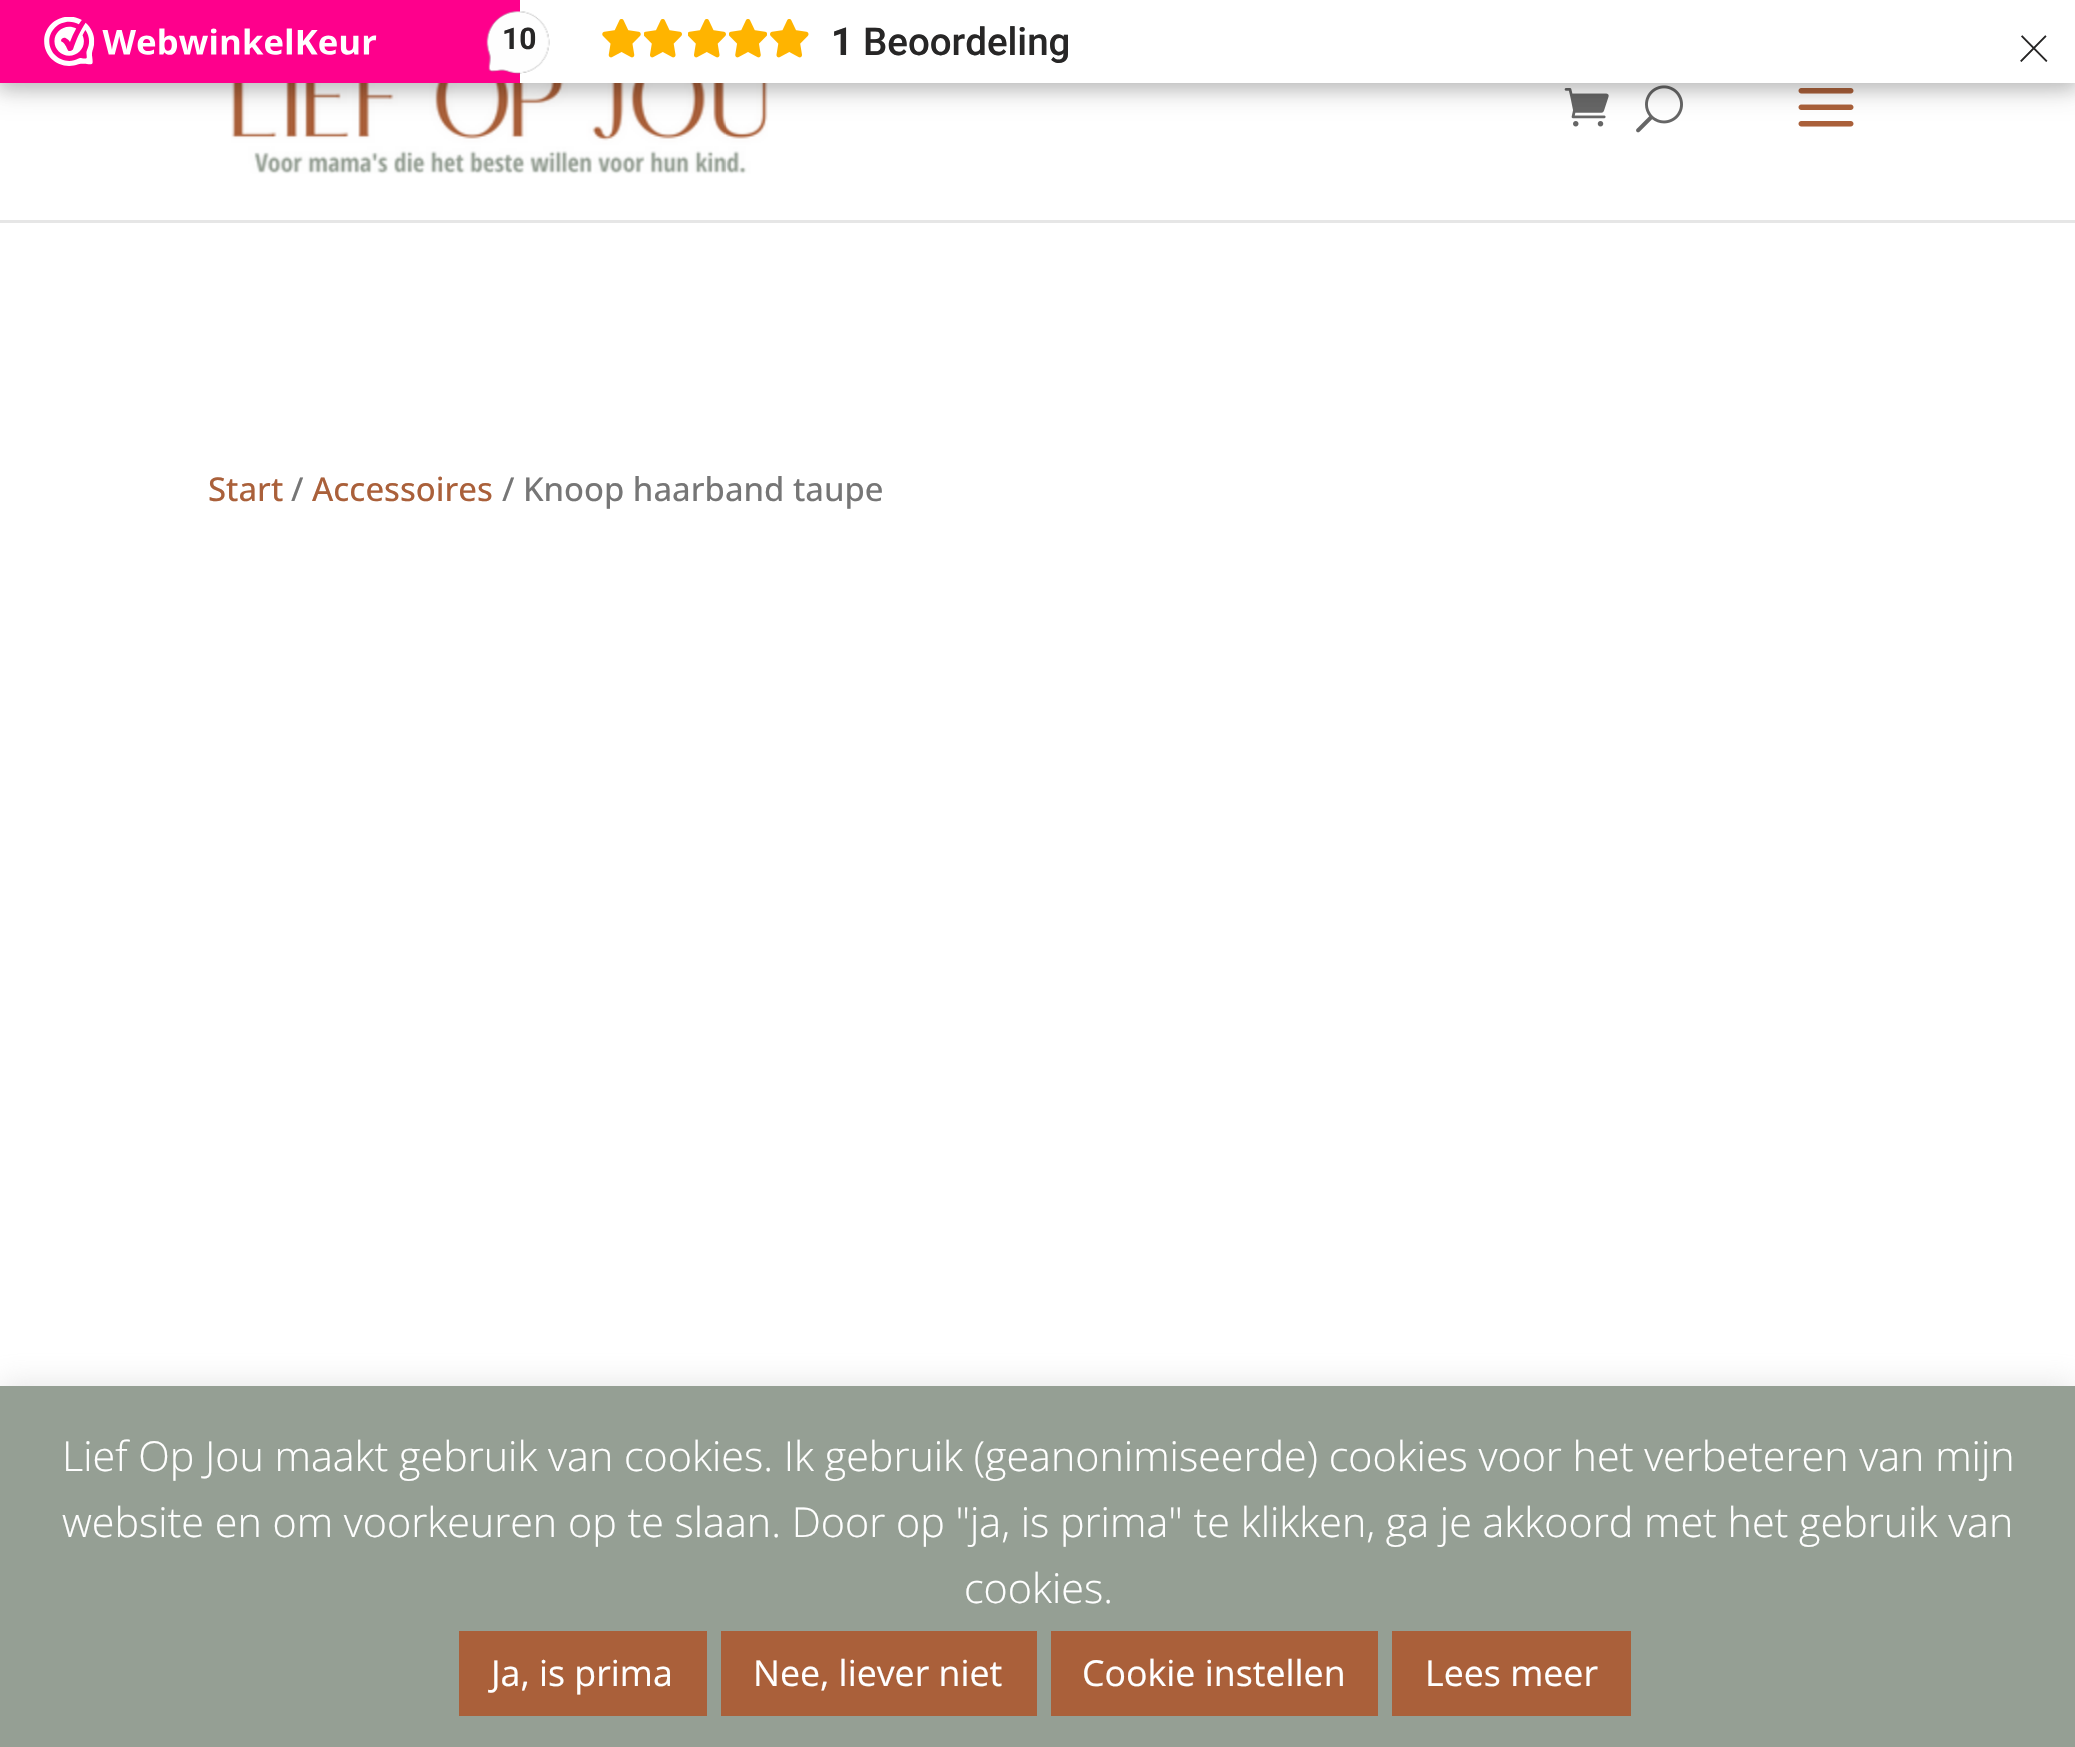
void draw(SkCanvas* canvas) {
    SkPaint paint;
    paint.setAntiAlias(true);
    auto face = [&](const char* family, int weight, float size, bool italic = false) {
        SkFontStyle style(weight, SkFontStyle::kNormal_Width,
            italic ? SkFontStyle::kItalic_Slant : SkFontStyle::kUpright_Slant);
        SkFont result(fontMgr->matchFamilyStyle(family, style), size);
        result.setSubpixel(true);
        return result;
    };
    auto write = [&](const char* s, float x, float y, const SkFont& font, SkColor color) {
        SkPaint ink(SkColor4f::FromColor(color));
        ink.setAntiAlias(true);
        canvas->drawString(s, x, y, font, ink);
    };
    auto block = [&](float x, float y, float w, float h, SkColor color) {
        SkPaint ink(SkColor4f::FromColor(color));
        ink.setAntiAlias(true);
        canvas->drawRect(SkRect::MakeXYWH(x, y, w, h), ink);
    };
    auto paste = [&](const char* path, float x, float y, float w, float h) {
        auto image = SkImages::DeferredFromEncodedData(SkData::MakeFromFileName(path));
        canvas->drawImageRect(image, SkRect::MakeXYWH(x, y, w, h), SkSamplingOptions());
    };
    canvas->clear(SK_ColorWHITE);
    paste("pic7.png", 231, 83, 537, 91);
    paste("pic8.png", 1564, 88, 45, 39);
    paste("pic9.png", 1636, 85, 47, 48);
    paste("pic10.png", 1798, 88, 56, 39);
    paint.setColor(SkColorSetARGB(38, 0, 0, 0));
    paint.setMaskFilter(SkMaskFilter::MakeBlur(kNormal_SkBlurStyle, 8));
    canvas->drawRect(SkRect::MakeXYWH(-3, -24, 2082, 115), paint);
    paint.setMaskFilter(nullptr);
    paint.setMaskFilter(SkMaskFilter::MakeBlur(kNormal_SkBlurStyle, 14));
    canvas->drawRect(SkRect::MakeXYWH(0, 6, 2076, 82), paint);
    paint.setMaskFilter(nullptr);
    block(0, 0, 520, 83, SkColorSetRGB(254, 0, 140));
    paste("pic1.png", 44, 17, 333, 49);
    block(520, 0, 1555, 83, SK_ColorWHITE);
    paste("pic2.png", 602, 19, 39, 39);
    paste("pic3.png", 644, 19, 38, 39);
    paste("pic3.png", 688, 19, 38, 39);
    paste("pic4.png", 729, 19, 38, 39);
    paste("pic5.png", 770, 19, 39, 39);
    auto kFont1 = face("Roboto", 700, 38.5f);
    write("1", 831, 55, kFont1, SkColorSetRGB(39, 38, 38));
    auto kFont2 = face("Roboto", 500, 38.5f);
    write("Beoordeling", 863, 55, kFont2, SkColorSetRGB(39, 38, 38));
    auto kFont3 = face("Roboto", 100, 66);
    write("×", 2017, 62, kFont3, SkColorSetRGB(39, 38, 38));
    paste("pic6.png", 486, 11, 64, 63);
    auto kFont4 = face("Roboto", 700, 30);
    write("10", 502, 49, kFont4, SkColorSetRGB(39, 38, 38));
    block(0, 220, 2075, 3, SkColorSetRGB(230, 230, 230));
    auto kFont5 = face("Open Sans", 500, 32.9f);
    write("Start", 208, 501, kFont5, SkColorSetRGB(170, 96, 58));
    write("/", 291, 501, kFont5, SkColorSetRGB(118, 118, 118));
    write("Accessoires", 312, 501, kFont5, SkColorSetRGB(170, 96, 58));
    write("/ Knoop haarband taupe", 502, 501, kFont5, SkColorSetRGB(118, 118, 118));
    paint.setColor(SkColorSetARGB(77, 172, 171, 171));
    paint.setMaskFilter(SkMaskFilter::MakeBlur(kNormal_SkBlurStyle, 14));
    canvas->drawRect(SkRect::MakeXYWH(0, 1383, 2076, 363), paint);
    paint.setMaskFilter(nullptr);
    block(0, 1386, 2075, 361, SkColorSetRGB(149, 159, 148));
    auto kFont6 = face("Open Sans", 300, 41.25f);
    write("Lief Op Jou maakt gebruik van cookies. Ik gebruik (geanonimiseerde) cookies voor het verbeteren van mijn", 62, 1471, kFont6, SK_ColorWHITE);
    write("website en om voorkeuren op te slaan. Door op \"ja, is prima\" te klikken, ga je akkoord met het gebruik van", 62, 1537, kFont6, SK_ColorWHITE);
    write("cookies.", 964, 1603, kFont6, SK_ColorWHITE);
    block(459, 1631, 248, 85, SkColorSetRGB(170, 96, 58));
    auto kFont7 = face("Open Sans", 400, 35.75f);
    write("Ja, is prima", 491, 1686, kFont7, SK_ColorWHITE);
    block(721, 1631, 316, 85, SkColorSetRGB(170, 96, 58));
    write("Nee, liever niet", 753, 1686, kFont7, SK_ColorWHITE);
    block(1051, 1631, 327, 85, SkColorSetRGB(170, 96, 58));
    write("Cookie instellen", 1082, 1686, kFont7, SK_ColorWHITE);
    block(1392, 1631, 239, 85, SkColorSetRGB(170, 96, 58));
    write("Lees meer", 1425, 1686, kFont7, SK_ColorWHITE);
}
